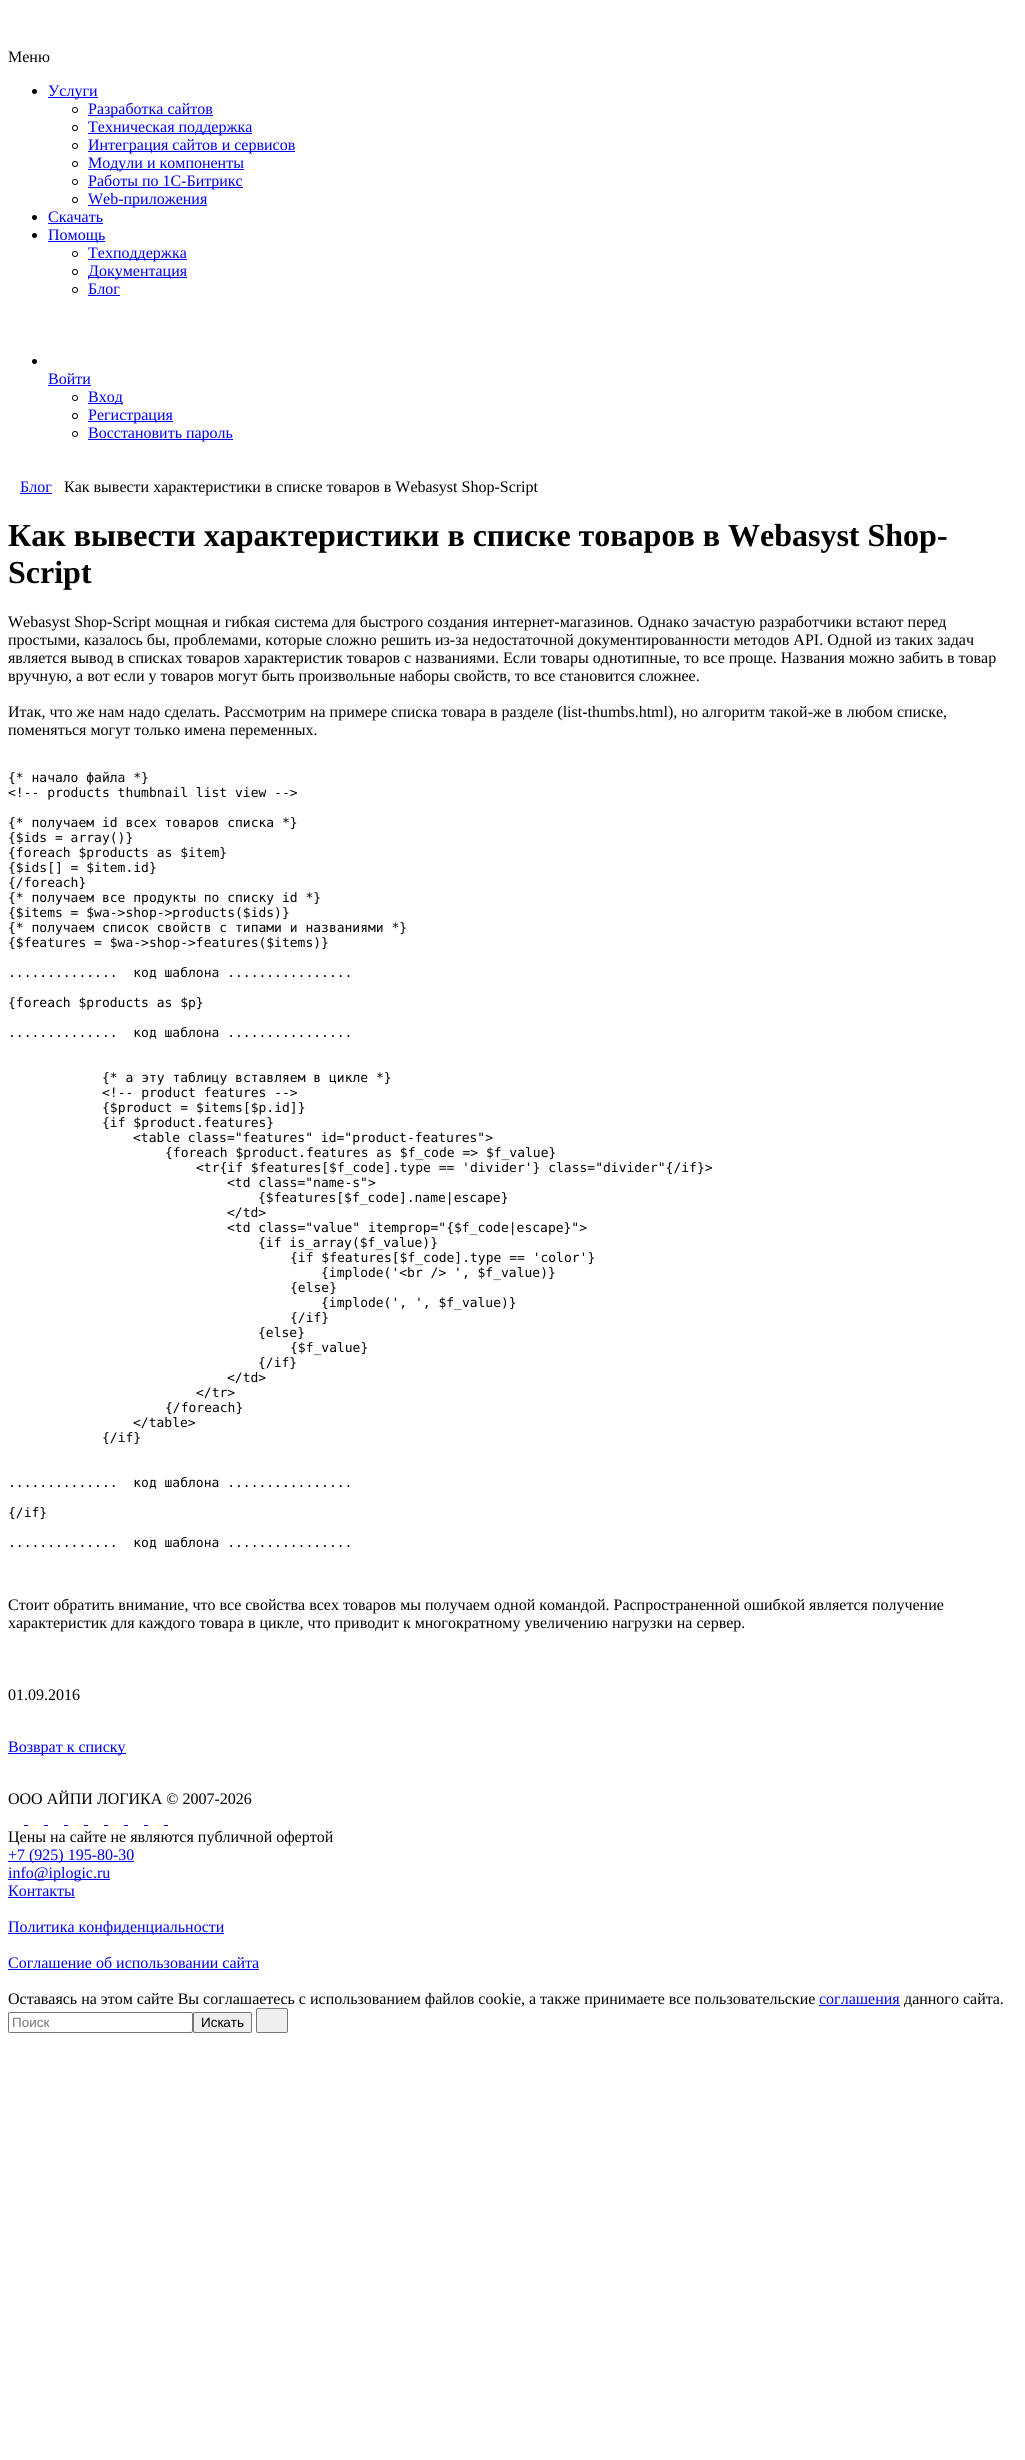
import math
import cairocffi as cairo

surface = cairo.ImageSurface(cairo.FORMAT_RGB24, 1025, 2460)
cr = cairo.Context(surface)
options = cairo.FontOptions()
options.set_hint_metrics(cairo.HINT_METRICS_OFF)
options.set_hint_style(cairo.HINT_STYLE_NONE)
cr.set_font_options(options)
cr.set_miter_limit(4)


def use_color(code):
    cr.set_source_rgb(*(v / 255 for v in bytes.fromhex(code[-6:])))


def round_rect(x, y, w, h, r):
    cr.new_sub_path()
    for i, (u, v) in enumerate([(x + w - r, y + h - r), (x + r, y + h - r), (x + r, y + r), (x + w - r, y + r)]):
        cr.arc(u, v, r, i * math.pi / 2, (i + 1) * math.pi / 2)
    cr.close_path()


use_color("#ffffff")
cr.paint()
cr.select_font_face("Liberation Serif")
cr.set_font_size(16)
use_color("#000000")
cr.move_to(8, 62)
cr.show_text("Меню")
cr.new_path()
cr.arc(34.5, 91.5, 2.5, 0, 2 * math.pi)
cr.fill()
use_color("#0000ee")
cr.rectangle(48, 97, 50, 1)
cr.fill()
cr.move_to(48, 96)
cr.show_text("Услуги")
cr.new_path()
cr.arc(75, 110, 2.5, 0, 2 * math.pi)
use_color("#000000")
cr.set_line_width(1)
cr.stroke()
use_color("#0000ee")
cr.rectangle(88, 115, 125, 1)
cr.fill()
cr.move_to(88, 114)
cr.show_text("Разработка сайтов")
cr.new_path()
cr.arc(75, 128, 2.5, 0, 2 * math.pi)
use_color("#000000")
cr.stroke()
use_color("#0000ee")
cr.rectangle(88, 133, 164, 1)
cr.fill()
cr.move_to(88, 132)
cr.show_text("Техническая поддержка")
cr.new_path()
cr.arc(75, 146, 2.5, 0, 2 * math.pi)
use_color("#000000")
cr.stroke()
use_color("#0000ee")
cr.rectangle(88, 151, 207, 1)
cr.fill()
cr.move_to(88, 150)
cr.show_text("Интеграция сайтов и сервисов")
cr.new_path()
cr.arc(75, 164, 2.5, 0, 2 * math.pi)
use_color("#000000")
cr.stroke()
use_color("#0000ee")
cr.rectangle(88, 169, 156, 1)
cr.fill()
cr.move_to(88, 168)
cr.show_text("Модули и компоненты")
cr.new_path()
cr.arc(75, 182, 2.5, 0, 2 * math.pi)
use_color("#000000")
cr.stroke()
use_color("#0000ee")
cr.rectangle(88, 187, 155, 1)
cr.fill()
cr.move_to(88, 186)
cr.show_text("Работы по 1С-Битрикс")
cr.new_path()
cr.arc(75, 200, 2.5, 0, 2 * math.pi)
use_color("#000000")
cr.stroke()
use_color("#0000ee")
cr.rectangle(88, 205, 119, 1)
cr.fill()
cr.move_to(88, 204)
cr.show_text("Web-приложения")
use_color("#000000")
cr.new_path()
cr.arc(34.5, 217.5, 2.5, 0, 2 * math.pi)
cr.fill()
use_color("#0000ee")
cr.move_to(48, 222)
cr.show_text("Скачать")
cr.rectangle(48, 223, 55, 1)
cr.fill()
use_color("#000000")
cr.arc(34.5, 235.5, 2.5, 0, 2 * math.pi)
cr.fill()
use_color("#0000ee")
cr.rectangle(48, 241, 57, 1)
cr.fill()
cr.move_to(48, 240)
cr.show_text("Помощь")
cr.new_path()
cr.arc(75, 254, 2.5, 0, 2 * math.pi)
use_color("#000000")
cr.stroke()
use_color("#0000ee")
cr.rectangle(88, 259, 99, 1)
cr.fill()
cr.move_to(88, 258)
cr.show_text("Техподдержка")
cr.new_path()
cr.arc(75, 272, 2.5, 0, 2 * math.pi)
use_color("#000000")
cr.stroke()
use_color("#0000ee")
cr.rectangle(88, 277, 99, 1)
cr.fill()
cr.move_to(88, 276)
cr.show_text("Документация")
cr.new_path()
cr.arc(75, 290, 2.5, 0, 2 * math.pi)
use_color("#000000")
cr.stroke()
use_color("#0000ee")
cr.move_to(88, 294)
cr.show_text("Блог")
cr.rectangle(88, 295, 32, 1)
cr.fill()
use_color("#000000")
cr.arc(34.5, 361.5, 2.5, 0, 2 * math.pi)
cr.fill()
use_color("#0000ee")
cr.move_to(48, 384)
cr.show_text("Войти")
cr.rectangle(48, 385, 43, 1)
cr.fill()
cr.arc(75, 398, 2.5, 0, 2 * math.pi)
use_color("#000000")
cr.stroke()
use_color("#0000ee")
cr.rectangle(88, 403, 35, 1)
cr.fill()
cr.move_to(88, 402)
cr.show_text("Вход")
cr.new_path()
cr.arc(75, 416, 2.5, 0, 2 * math.pi)
use_color("#000000")
cr.stroke()
use_color("#0000ee")
cr.rectangle(88, 421, 85, 1)
cr.fill()
cr.move_to(88, 420)
cr.show_text("Регистрация")
cr.new_path()
cr.arc(75, 434, 2.5, 0, 2 * math.pi)
use_color("#000000")
cr.stroke()
use_color("#0000ee")
cr.rectangle(88, 439, 145, 1)
cr.fill()
cr.move_to(88, 438)
cr.show_text("Восстановить пароль")
cr.move_to(20, 492)
cr.show_text("Блог")
cr.rectangle(20, 493, 32, 1)
cr.fill()
use_color("#000000")
cr.move_to(64, 492)
cr.show_text("Как вывести характеристики в списке товаров в Webasyst Shop-Script")
cr.select_font_face("Liberation Serif", cairo.FONT_SLANT_NORMAL, cairo.FONT_WEIGHT_BOLD)
cr.set_font_size(32)
cr.move_to(8, 546)
cr.show_text("Как вывести характеристики в списке товаров в Webasyst Shop-")
cr.move_to(8, 583)
cr.show_text("Script")
cr.select_font_face("Liberation Serif")
cr.set_font_size(16)
cr.move_to(8, 627)
cr.show_text("Webasyst Shop-Script мощная и гибкая система для быстрого создания интернет-магазинов. Однако зачастую разработчики встают перед")
cr.move_to(8, 645)
cr.show_text("простыми, казалось бы, проблемами, которые сложно решить из-за недостаточной документированности методов API. Одной из таких задач")
cr.move_to(8, 663)
cr.show_text("является вывод в списках товаров характеристик товаров с названиями. Если товары однотипные, то все проще. Названия можно забить в товар")
cr.move_to(8, 681)
cr.show_text("вручную, а вот если у товаров могут быть произвольные наборы свойств, то все становится сложнее.")
cr.move_to(8, 717)
cr.show_text("Итак, что же нам надо сделать. Рассмотрим на примере списка товара в разделе (list-thumbs.html), но алгоритм такой-же в любом списке,")
cr.move_to(8, 735)
cr.show_text("поменяться могут только имена переменных.")
cr.select_font_face("DejaVu Sans Mono")
cr.set_font_size(13)
cr.move_to(8, 782)
cr.show_text("{* начало файла *}")
cr.move_to(8, 797)
cr.show_text("<!-- products thumbnail list view -->")
cr.move_to(8, 827)
cr.show_text("{* получаем id всех товаров списка *}")
cr.move_to(8, 842)
cr.show_text("{$ids = array()}")
cr.move_to(8, 857)
cr.show_text("{foreach $products as $item}")
cr.move_to(8, 872)
cr.show_text("{$ids[] = $item.id}")
cr.move_to(8, 887)
cr.show_text("{/foreach}")
cr.move_to(8, 902)
cr.show_text("{* получаем все продукты по списку id *}")
cr.move_to(8, 917)
cr.show_text("{$items = $wa->shop->products($ids)}")
cr.move_to(8, 932)
cr.show_text("{* получаем список свойств с типами и названиями *}")
cr.move_to(8, 947)
cr.show_text("{$features = $wa->shop->features($items)}")
cr.move_to(8, 977)
cr.show_text("..............  код шаблона ................")
cr.move_to(8, 1007)
cr.show_text("{foreach $products as $p}")
cr.move_to(8, 1037)
cr.show_text("..............  код шаблона ................")
cr.move_to(102, 1082)
cr.show_text("{* а эту таблицу вставляем в цикле *}")
cr.move_to(102, 1097)
cr.show_text("<!-- product features -->")
cr.move_to(102, 1112)
cr.show_text("{$product = $items[$p.id]}")
cr.move_to(102, 1127)
cr.show_text("{if $product.features}")
cr.move_to(133, 1142)
cr.show_text("<table class=\"features\" id=\"product-features\">")
cr.move_to(165, 1157)
cr.show_text("{foreach $product.features as $f_code => $f_value}")
cr.move_to(196, 1172)
cr.show_text("<tr{if $features[$f_code].type == 'divider'} class=\"divider\"{/if}>")
cr.move_to(227, 1187)
cr.show_text("<td class=\"name-s\">")
cr.move_to(258, 1202)
cr.show_text("{$features[$f_code].name|escape}")
cr.move_to(227, 1217)
cr.show_text("</td>")
cr.move_to(227, 1232)
cr.show_text("<td class=\"value\" itemprop=\"{$f_code|escape}\">")
cr.move_to(258, 1247)
cr.show_text("{if is_array($f_value)}")
cr.move_to(290, 1262)
cr.show_text("{if $features[$f_code].type == 'color'}")
cr.move_to(321, 1277)
cr.show_text("{implode('<br /> ', $f_value)}")
cr.move_to(290, 1292)
cr.show_text("{else}")
cr.move_to(321, 1307)
cr.show_text("{implode(', ', $f_value)}")
cr.move_to(290, 1322)
cr.show_text("{/if}")
cr.move_to(258, 1337)
cr.show_text("{else}")
cr.move_to(290, 1352)
cr.show_text("{$f_value}")
cr.move_to(258, 1367)
cr.show_text("{/if}")
cr.move_to(227, 1382)
cr.show_text("</td>")
cr.move_to(196, 1397)
cr.show_text("</tr>")
cr.move_to(165, 1412)
cr.show_text("{/foreach}")
cr.move_to(133, 1427)
cr.show_text("</table>")
cr.move_to(102, 1442)
cr.show_text("{/if}")
cr.move_to(8, 1487)
cr.show_text("..............  код шаблона ................")
cr.move_to(8, 1517)
cr.show_text("{/if}")
cr.move_to(8, 1547)
cr.show_text("..............  код шаблона ................")
cr.select_font_face("Liberation Serif")
cr.set_font_size(16)
cr.move_to(8, 1610)
cr.show_text("Стоит обратить внимание, что все свойства всех товаров мы получаем одной командой. Распространенной ошибкой является получение")
cr.move_to(8, 1628)
cr.show_text("характеристик для каждого товара в цикле, что приводит к многократному увеличению нагрузки на сервер.")
cr.move_to(8, 1700)
cr.show_text("01.09.2016")
use_color("#0000ee")
cr.rectangle(8, 1753, 118, 1)
cr.fill()
cr.move_to(8, 1752)
cr.show_text("Возврат к списку")
use_color("#000000")
cr.move_to(8, 1804)
cr.show_text("ООО АЙПИ ЛОГИКА © 2007-2026")
use_color("#0000ee")
cr.rectangle(24, 1825, 4, 1)
cr.fill()
cr.rectangle(44, 1825, 4, 1)
cr.fill()
cr.rectangle(64, 1825, 4, 1)
cr.fill()
cr.rectangle(84, 1825, 4, 1)
cr.fill()
cr.rectangle(104, 1825, 4, 1)
cr.fill()
cr.rectangle(124, 1825, 4, 1)
cr.fill()
cr.rectangle(144, 1825, 4, 1)
cr.fill()
cr.rectangle(164, 1825, 4, 1)
cr.fill()
use_color("#000000")
cr.move_to(8, 1842)
cr.show_text("Цены на сайте не являются публичной офертой")
use_color("#0000ee")
cr.rectangle(8, 1861, 126, 1)
cr.fill()
cr.move_to(8, 1860)
cr.show_text("+7 (925) 195-80-30")
cr.rectangle(8, 1879, 102, 1)
cr.fill()
cr.move_to(8, 1878)
cr.show_text("info@iplogic.ru")
cr.move_to(8, 1896)
cr.show_text("Контакты")
cr.rectangle(8, 1897, 67, 1)
cr.fill()
cr.rectangle(8, 1933, 216, 1)
cr.fill()
cr.move_to(8, 1932)
cr.show_text("Политика конфиденциальности")
cr.move_to(8, 1968)
cr.show_text("Соглашение об использовании сайта")
cr.rectangle(8, 1969, 251, 1)
cr.fill()
use_color("#000000")
cr.move_to(8, 2004)
cr.show_text("Оставаясь на этом сайте Вы соглашаетесь с использованием файлов cookie, а также принимаете все пользовательские")
use_color("#0000ee")
cr.move_to(819, 2004)
cr.show_text("соглашения")
cr.rectangle(819, 2005, 81, 1)
cr.fill()
use_color("#000000")
cr.move_to(904, 2004)
cr.show_text("данного сайта.")
round_rect(8.5, 2012.5, 184, 20, 1.5)
use_color("#767676")
cr.stroke()
cr.select_font_face("Liberation Sans")
cr.set_font_size(13.5)
use_color("#757575")
cr.move_to(12, 2027)
cr.show_text("Поиск")
use_color("#efefef")
round_rect(193.5, 2012.5, 58, 20, 1.5)
cr.fill_preserve()
use_color("#767676")
cr.stroke()
use_color("#000000")
cr.move_to(201, 2027)
cr.show_text("Искать")
use_color("#efefef")
round_rect(256.5, 2008.5, 31, 24, 1.5)
cr.fill_preserve()
use_color("#767676")
cr.stroke()
surface.write_to_png("result.png")
